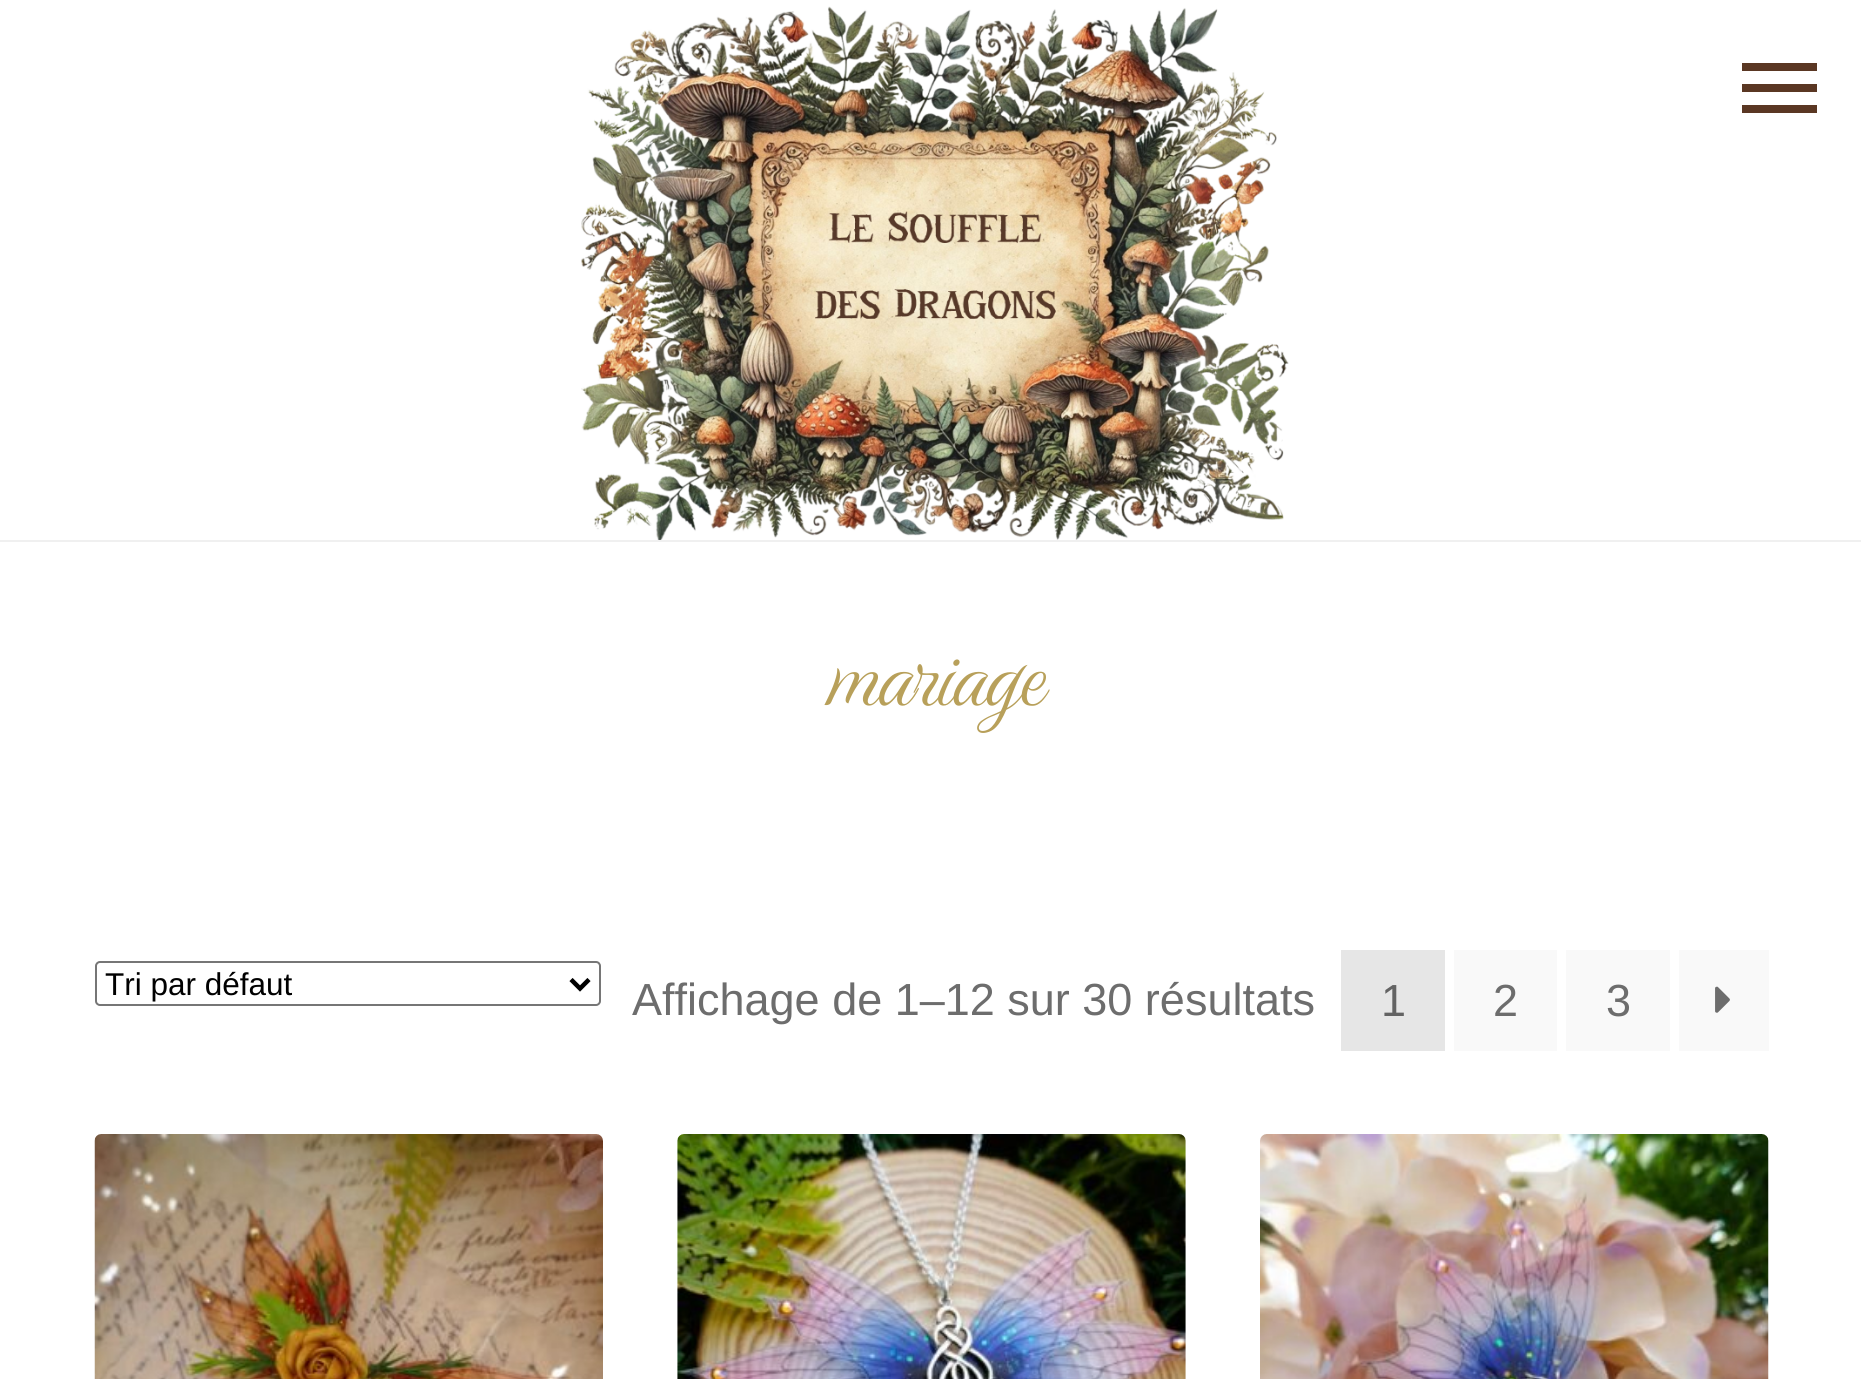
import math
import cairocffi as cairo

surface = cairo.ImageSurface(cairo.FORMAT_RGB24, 1861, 1379)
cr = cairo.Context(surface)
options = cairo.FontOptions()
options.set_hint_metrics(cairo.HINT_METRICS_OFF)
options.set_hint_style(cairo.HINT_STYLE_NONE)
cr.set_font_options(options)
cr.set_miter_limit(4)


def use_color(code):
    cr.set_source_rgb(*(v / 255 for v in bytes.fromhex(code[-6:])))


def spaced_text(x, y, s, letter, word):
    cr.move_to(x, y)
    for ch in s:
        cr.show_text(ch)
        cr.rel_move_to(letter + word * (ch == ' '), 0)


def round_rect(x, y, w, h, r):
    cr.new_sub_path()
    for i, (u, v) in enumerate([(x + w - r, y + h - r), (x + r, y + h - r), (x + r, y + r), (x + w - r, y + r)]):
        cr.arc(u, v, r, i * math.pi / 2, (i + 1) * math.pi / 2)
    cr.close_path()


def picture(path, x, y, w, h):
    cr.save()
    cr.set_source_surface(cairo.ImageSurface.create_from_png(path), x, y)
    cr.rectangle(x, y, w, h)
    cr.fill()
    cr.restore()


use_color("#ffffff")
cr.paint()
use_color("#f0f0f0")
cr.rectangle(0, 540, 1861, 2)
cr.fill()
picture("img1.png", 581, 6, 708, 534)
use_color("#5a3723")
cr.new_path()
cr.move_to(1742, 113)
cr.line_to(1742, 105)
cr.line_to(1817, 105)
cr.line_to(1817, 113)
cr.close_path()
cr.move_to(1742, 92)
cr.line_to(1742, 84)
cr.line_to(1817, 84)
cr.line_to(1817, 92)
cr.close_path()
cr.move_to(1742, 63)
cr.line_to(1817, 63)
cr.line_to(1817, 71)
cr.line_to(1742, 71)
cr.close_path()
cr.fill()
cr.select_font_face("MonteCarlo")
cr.set_font_size(101)
use_color("#b8a05a")
spaced_text(824, 705, "mariage", -2.25, 0)
round_rect(96, 962, 504, 43, 4)
use_color("#767676")
cr.stroke()
cr.new_path()
cr.move_to(571, 979.5)
cr.line_to(580, 988.5)
cr.line_to(589, 979.5)
use_color("#000000")
cr.set_line_width(4.5)
cr.stroke()
cr.select_font_face("Liberation Sans")
cr.set_font_size(31.5)
cr.move_to(105, 995)
cr.show_text("Tri par défaut")
cr.set_font_size(45)
use_color("#6d6d6d")
cr.move_to(632, 1015)
cr.show_text("Affichage de 1–12 sur 30 résultats")
use_color("#e6e6e6")
cr.rectangle(1341, 950, 104, 101)
cr.fill()
use_color("#636363")
cr.move_to(1381, 1016)
cr.show_text("1")
use_color("#f9f9f9")
cr.rectangle(1454, 950, 103, 101)
cr.fill()
use_color("#6d6d6d")
cr.move_to(1493, 1016)
cr.show_text("2")
use_color("#f9f9f9")
cr.rectangle(1566, 950, 104, 101)
cr.fill()
use_color("#6d6d6d")
cr.move_to(1606, 1016)
cr.show_text("3")
use_color("#f9f9f9")
cr.rectangle(1679, 950, 90, 101)
cr.fill()
picture("img2.png", 1715, 986, 15, 27)
picture("img3.png", 94, 1134, 509, 245)
picture("img4.png", 677, 1134, 509, 245)
picture("img5.png", 1260, 1134, 509, 245)
surface.write_to_png("result.png")
